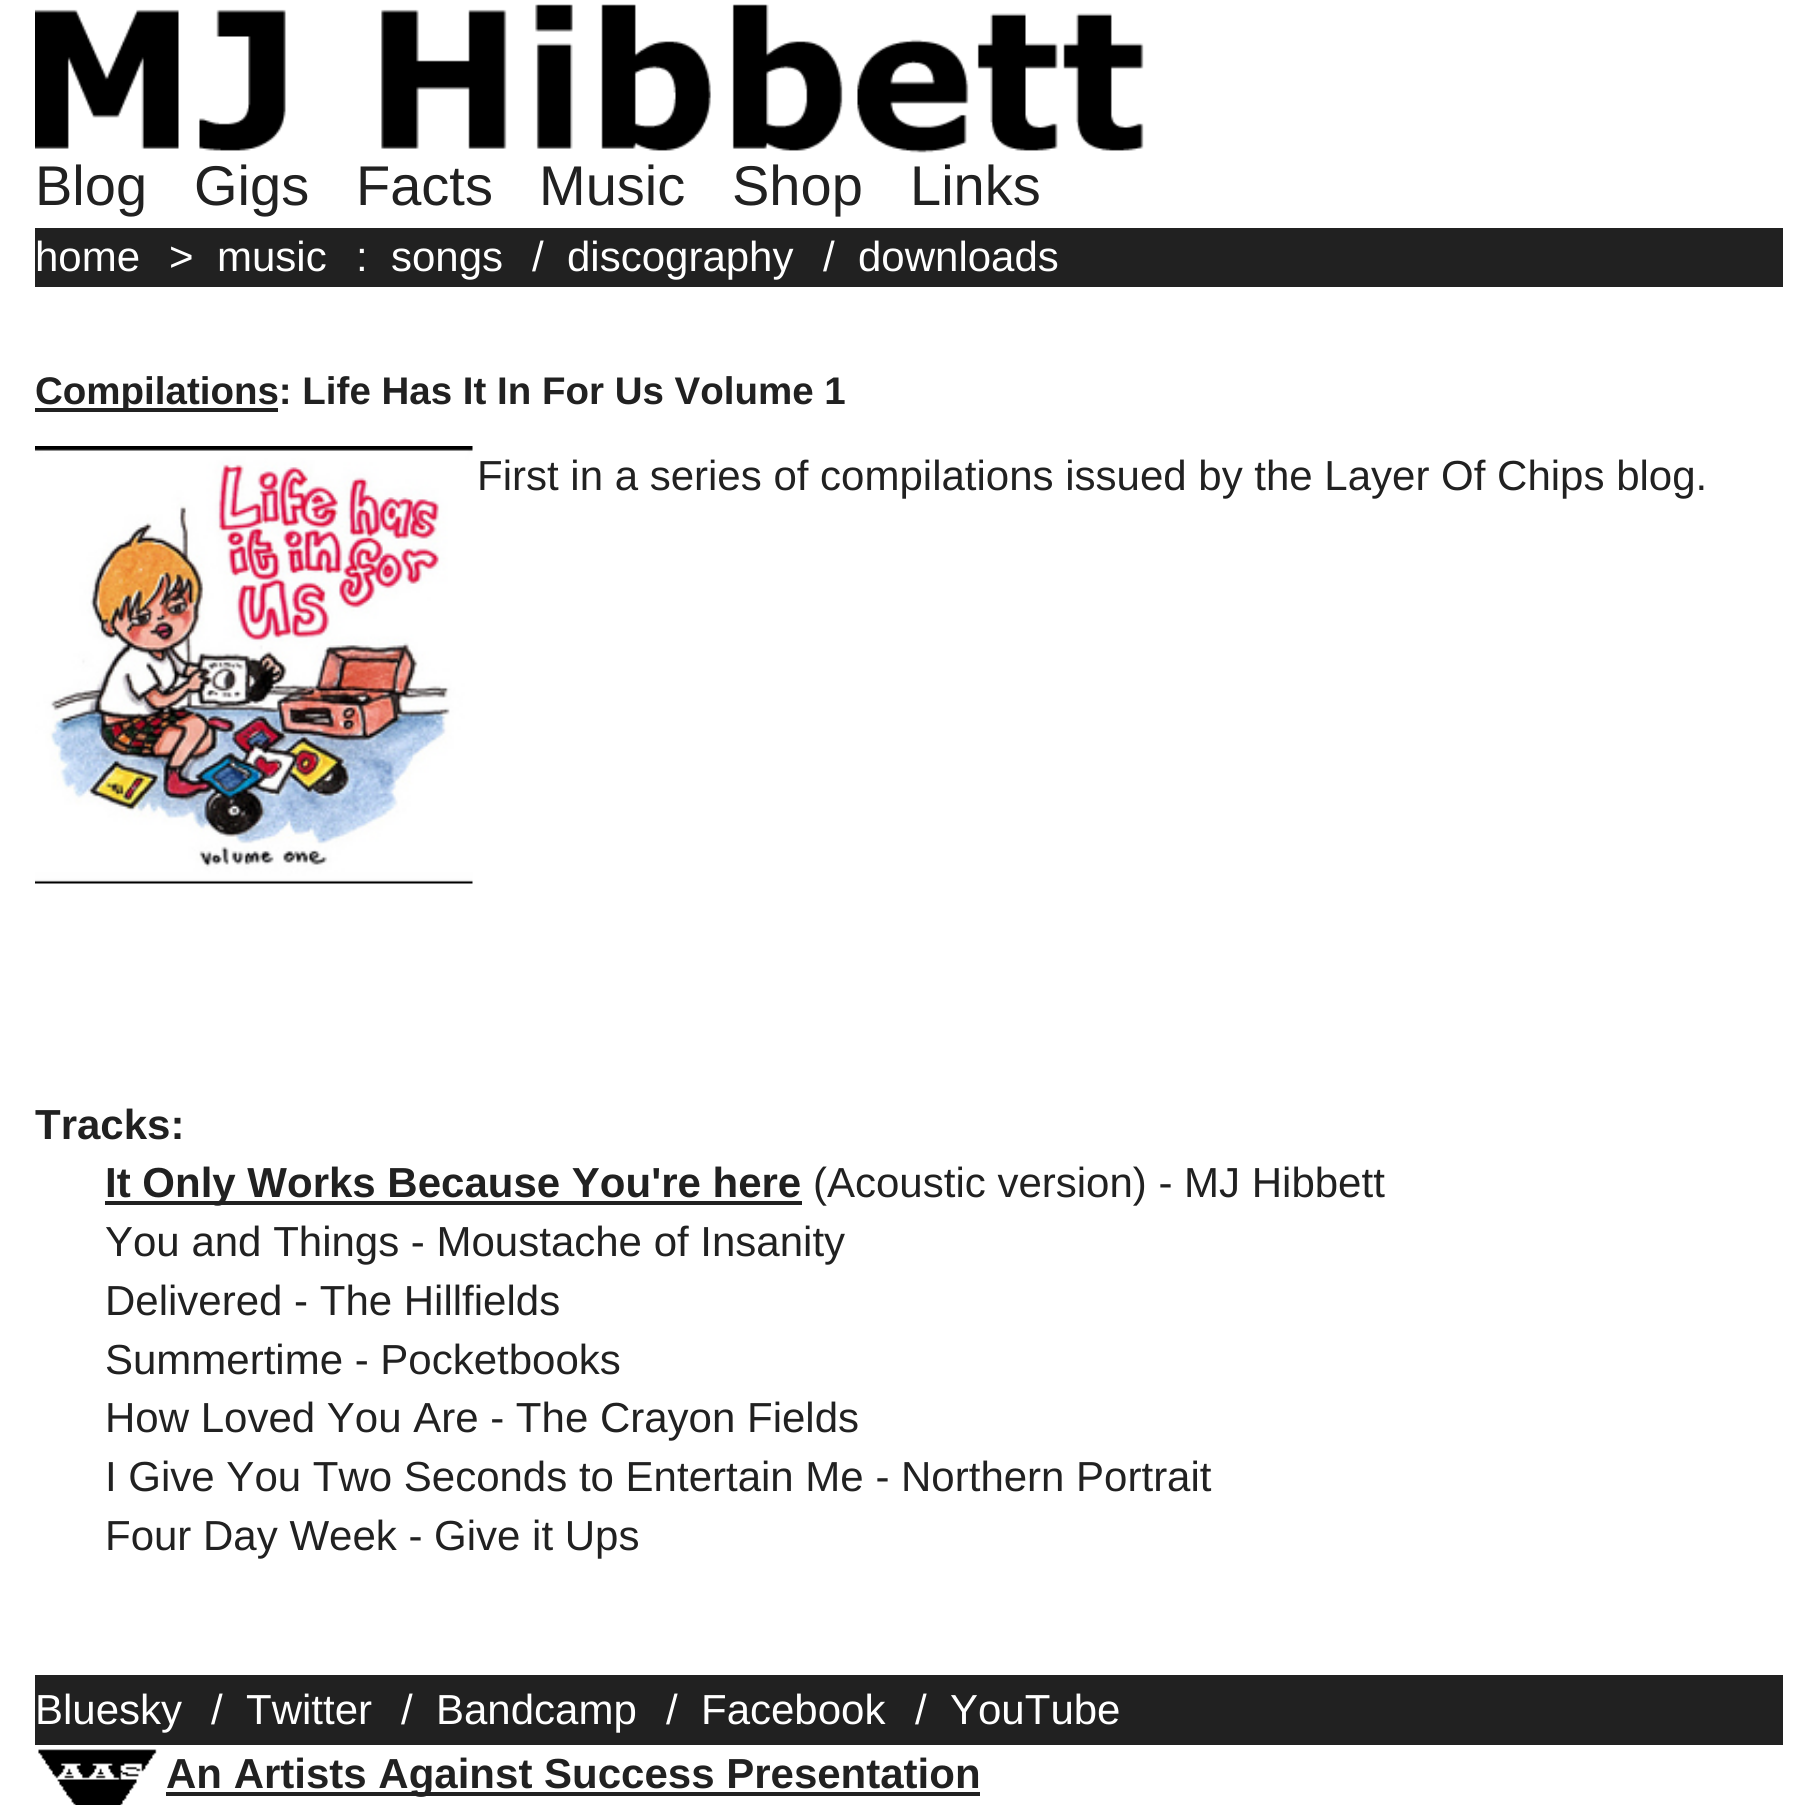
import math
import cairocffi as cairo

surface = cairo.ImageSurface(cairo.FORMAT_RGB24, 1818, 1805)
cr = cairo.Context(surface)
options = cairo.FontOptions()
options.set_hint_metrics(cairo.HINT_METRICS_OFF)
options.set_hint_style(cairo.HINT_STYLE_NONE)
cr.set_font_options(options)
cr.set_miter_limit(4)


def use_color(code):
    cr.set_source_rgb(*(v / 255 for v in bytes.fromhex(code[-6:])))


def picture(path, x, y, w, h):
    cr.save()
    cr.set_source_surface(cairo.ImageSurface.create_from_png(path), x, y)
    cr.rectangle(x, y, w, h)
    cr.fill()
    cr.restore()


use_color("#ffffff")
cr.paint()
picture("img1.png", 35, 4, 1109, 149)
cr.select_font_face("Liberation Sans")
cr.set_font_size(56)
use_color("#212121")
cr.move_to(35, 205)
cr.show_text("Blog")
cr.move_to(194, 205)
cr.show_text("Gigs")
cr.move_to(356, 205)
cr.show_text("Facts")
cr.move_to(539, 205)
cr.show_text("Music")
cr.move_to(732, 205)
cr.show_text("Shop")
cr.move_to(910, 205)
cr.show_text("Links")
cr.rectangle(35, 228, 1748, 59)
cr.fill()
cr.set_font_size(42)
use_color("#ffffff")
cr.move_to(35, 271)
cr.show_text("home")
cr.move_to(169, 271)
cr.show_text(">")
cr.move_to(217, 271)
cr.show_text("music")
cr.move_to(356, 271)
cr.show_text(":")
cr.move_to(391, 271)
cr.show_text("songs")
cr.move_to(532, 271)
cr.show_text("/")
cr.move_to(567, 271)
cr.show_text("discography")
cr.move_to(823, 271)
cr.show_text("/")
cr.move_to(858, 271)
cr.show_text("downloads")
use_color("#212121")
cr.rectangle(35, 408, 243, 4)
cr.fill()
cr.select_font_face("Liberation Sans", cairo.FONT_SLANT_NORMAL, cairo.FONT_WEIGHT_BOLD)
cr.set_font_size(38.5)
cr.move_to(35, 404)
cr.show_text("Compilations: Life Has It In For Us Volume 1")
picture("img2.png", 35, 446, 438, 438)
cr.select_font_face("Liberation Sans")
cr.set_font_size(42)
cr.move_to(477, 490)
cr.show_text("First in a series of compilations issued by the Layer Of Chips blog.")
cr.select_font_face("Liberation Sans", cairo.FONT_SLANT_NORMAL, cairo.FONT_WEIGHT_BOLD)
cr.move_to(35, 1139)
cr.show_text("Tracks:")
cr.rectangle(105, 1201, 697, 4)
cr.fill()
cr.move_to(105, 1197)
cr.show_text("It Only Works Because You're here")
cr.select_font_face("Liberation Sans")
cr.move_to(813, 1197)
cr.show_text("(Acoustic version) - MJ Hibbett")
cr.move_to(105, 1256)
cr.show_text("You and Things - Moustache of Insanity")
cr.move_to(105, 1315)
cr.show_text("Delivered - The Hillfields")
cr.move_to(105, 1374)
cr.show_text("Summertime - Pocketbooks")
cr.move_to(105, 1432)
cr.show_text("How Loved You Are - The Crayon Fields")
cr.move_to(105, 1491)
cr.show_text("I Give You Two Seconds to Entertain Me - Northern Portrait")
cr.move_to(105, 1550)
cr.show_text("Four Day Week - Give it Ups")
cr.rectangle(35, 1675, 1748, 70)
cr.fill()
use_color("#ffffff")
cr.move_to(35, 1724)
cr.show_text("Bluesky")
cr.move_to(211, 1724)
cr.show_text("/")
cr.move_to(246, 1724)
cr.show_text("Twitter")
cr.move_to(401, 1724)
cr.show_text("/")
cr.move_to(436, 1724)
cr.show_text("Bandcamp")
cr.move_to(666, 1724)
cr.show_text("/")
cr.move_to(701, 1724)
cr.show_text("Facebook")
cr.move_to(915, 1724)
cr.show_text("/")
cr.move_to(950, 1724)
cr.show_text("YouTube")
picture("img3.png", 38, 1749, 119, 56)
use_color("#212121")
cr.rectangle(166, 1792, 814, 4)
cr.fill()
cr.select_font_face("Liberation Sans", cairo.FONT_SLANT_NORMAL, cairo.FONT_WEIGHT_BOLD)
cr.move_to(166, 1788)
cr.show_text("An Artists Against Success Presentation")
surface.write_to_png("result.png")
